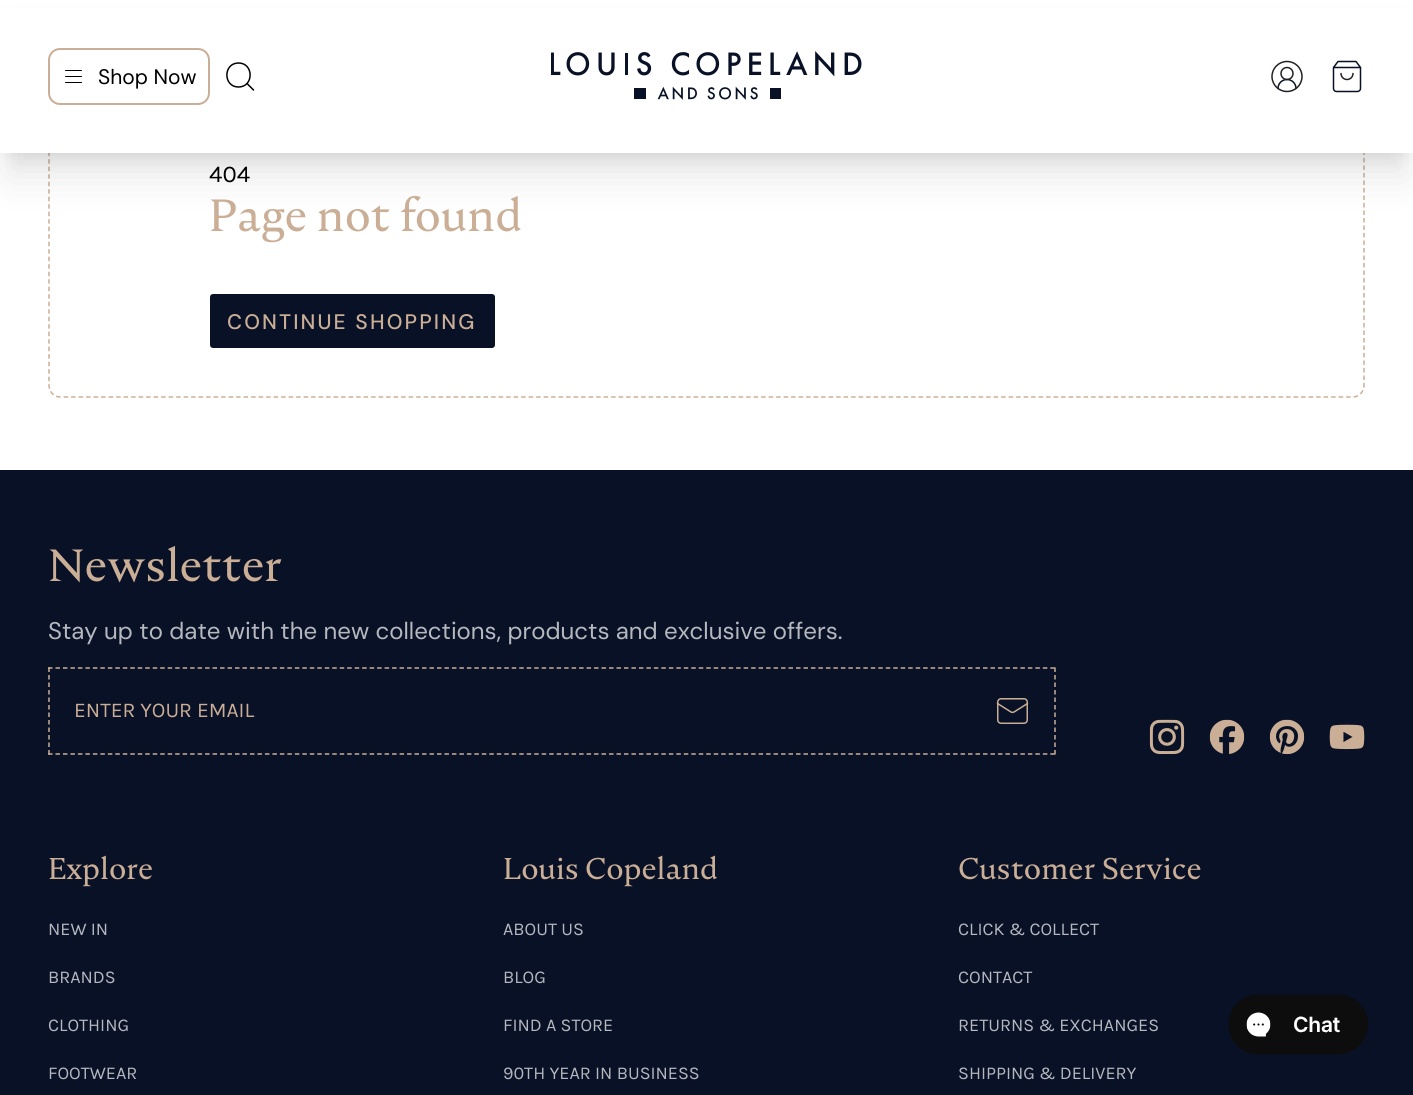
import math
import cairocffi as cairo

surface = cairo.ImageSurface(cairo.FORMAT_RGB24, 1413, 1095)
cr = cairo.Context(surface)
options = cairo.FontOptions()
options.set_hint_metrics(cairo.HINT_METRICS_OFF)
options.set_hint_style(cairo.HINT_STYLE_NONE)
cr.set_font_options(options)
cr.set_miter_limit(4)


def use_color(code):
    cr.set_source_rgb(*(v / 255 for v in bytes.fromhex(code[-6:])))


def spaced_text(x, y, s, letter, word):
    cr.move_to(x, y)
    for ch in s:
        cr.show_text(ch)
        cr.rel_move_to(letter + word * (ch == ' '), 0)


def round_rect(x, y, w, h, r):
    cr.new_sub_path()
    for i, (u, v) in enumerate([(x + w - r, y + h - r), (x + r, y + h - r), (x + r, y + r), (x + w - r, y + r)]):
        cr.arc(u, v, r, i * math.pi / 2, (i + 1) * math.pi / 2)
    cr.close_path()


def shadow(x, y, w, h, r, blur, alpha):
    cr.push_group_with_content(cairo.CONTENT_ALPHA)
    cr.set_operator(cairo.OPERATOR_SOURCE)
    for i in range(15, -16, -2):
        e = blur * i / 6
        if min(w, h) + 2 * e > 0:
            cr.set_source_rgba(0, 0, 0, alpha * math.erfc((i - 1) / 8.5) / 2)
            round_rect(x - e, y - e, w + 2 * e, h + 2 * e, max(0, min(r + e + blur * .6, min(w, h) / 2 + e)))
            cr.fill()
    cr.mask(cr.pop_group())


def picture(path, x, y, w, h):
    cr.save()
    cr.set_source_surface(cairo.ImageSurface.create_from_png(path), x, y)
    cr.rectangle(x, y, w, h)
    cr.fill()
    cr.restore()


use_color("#ffffff")
cr.paint()
cr.new_path()
cr.move_to(60, 107)
cr.line_to(1353, 107)
cr.curve_to(1359, 107, 1364, 112.5, 1364, 118.5)
cr.line_to(1364, 385.5)
cr.curve_to(1364, 391.5, 1359, 397, 1353, 397)
cr.line_to(60, 397)
cr.curve_to(54, 397, 49, 391.5, 49, 385.5)
cr.line_to(49, 118.5)
cr.curve_to(49, 112.5, 54, 107, 60, 107)
cr.close_path()
use_color("#caae96")
cr.set_line_width(1.5)
cr.set_dash([4.5, 3])
cr.stroke()
use_color("#000000")
shadow(9, 21, 1395, 135, 0, 7.5, 0.1)
shadow(8, 38, 1398, 138, 0, 19, 0.1)
use_color("#ffffff")
cr.rectangle(0, 8, 1413, 145)
cr.fill()
round_rect(49, 49, 160, 55, 11)
use_color("#caae96")
cr.set_line_width(2)
cr.set_dash([])
cr.stroke()
cr.new_path()
cr.move_to(65.5, 76.5)
cr.line_to(81.5, 76.5)
cr.move_to(65.5, 70.5)
cr.line_to(81.5, 70.5)
cr.move_to(65.5, 82.5)
cr.line_to(81.5, 82.5)
use_color("#000000")
cr.set_line_width(1)
cr.set_line_cap(cairo.LINE_CAP_ROUND)
cr.set_line_join(cairo.LINE_JOIN_ROUND)
cr.stroke()
cr.select_font_face("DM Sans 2")
cr.set_font_size(21)
cr.move_to(98, 84)
cr.show_text("Shop Now")
cr.new_path()
cr.move_to(238.5, 87)
cr.curve_to(254, 87, 254, 63, 238.5, 63)
cr.curve_to(223, 63, 223, 87, 238.5, 87)
cr.close_path()
cr.move_to(253.5, 90)
cr.line_to(247, 83.5)
cr.set_line_width(1.5)
cr.stroke()
picture("img1.png", 551, 51, 311, 49)
picture("img2.png", 1271, 60, 32, 33)
picture("img3.png", 1332, 60, 30, 33)
cr.select_font_face("Karla")
cr.set_font_size(24)
cr.move_to(209, 182)
cr.show_text("404")
cr.select_font_face("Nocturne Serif")
cr.set_font_size(45)
use_color("#caae96")
cr.move_to(209, 231)
cr.show_text("Page not found")
use_color("#091126")
round_rect(210, 294, 285, 54, 3)
cr.fill()
cr.select_font_face("DM Sans Medium")
cr.set_font_size(21)
use_color("#caae96")
spaced_text(227, 329, "CONTINUE SHOPPING", 2.1, 0)
use_color("#091126")
cr.rectangle(0, 470, 1413, 625)
cr.fill()
cr.select_font_face("Nocturne Serif")
cr.set_font_size(45)
use_color("#caae96")
cr.move_to(48, 581)
cr.show_text("Newsletter")
cr.select_font_face("DM Sans")
cr.set_font_size(24)
use_color("#b5b8be")
cr.move_to(48, 639)
cr.show_text("Stay up to date with the new collections, products and exclusive offers.")
cr.new_path()
cr.move_to(48, 668)
cr.line_to(1056, 668)
use_color("#caae96")
cr.set_line_cap(cairo.LINE_CAP_BUTT)
cr.set_line_join(cairo.LINE_JOIN_MITER)
cr.set_dash([4.5, 2.98])
cr.stroke()
cr.new_path()
cr.move_to(1055, 667.5)
cr.line_to(1055, 754.5)
cr.set_dash([4.5, 3])
cr.stroke()
cr.new_path()
cr.move_to(48, 754)
cr.line_to(1056, 754)
cr.set_dash([4.5, 2.98])
cr.stroke()
cr.new_path()
cr.move_to(49, 667.5)
cr.line_to(49, 754.5)
cr.set_dash([4.5, 3])
cr.stroke()
cr.select_font_face("Karla")
cr.set_font_size(21)
cr.move_to(74, 717)
cr.show_text("ENTER YOUR EMAIL")
round_rect(997.75, 698.75, 29.5, 24.5, 3.25)
cr.set_dash([])
cr.stroke()
cr.new_path()
cr.move_to(1027.5, 703.5)
cr.line_to(1014, 712)
cr.curve_to(1013, 712.5, 1012, 712.5, 1011, 712)
cr.line_to(997.5, 703.5)
cr.set_line_cap(cairo.LINE_CAP_ROUND)
cr.set_line_join(cairo.LINE_JOIN_ROUND)
cr.stroke()
picture("img4.png", 1149, 719, 36, 36)
picture("img5.png", 1209, 719, 36, 35)
picture("img6.png", 1269, 719, 36, 36)
picture("img7.png", 1329, 724, 36, 26)
cr.select_font_face("Nocturne Serif")
cr.set_font_size(30)
cr.move_to(48, 879)
cr.show_text("Explore")
cr.select_font_face("Karla")
cr.set_font_size(18)
use_color("#b5b8be")
cr.move_to(48, 935)
cr.show_text("NEW IN")
cr.move_to(48, 983)
cr.show_text("BRANDS")
cr.move_to(48, 1031)
cr.show_text("CLOTHING")
cr.move_to(48, 1079)
cr.show_text("FOOTWEAR")
cr.select_font_face("Nocturne Serif")
cr.set_font_size(30)
use_color("#caae96")
cr.move_to(503, 879)
cr.show_text("Louis Copeland")
cr.select_font_face("Karla")
cr.set_font_size(18)
use_color("#b5b8be")
cr.move_to(503, 935)
cr.show_text("ABOUT US")
cr.move_to(503, 983)
cr.show_text("BLOG")
cr.move_to(503, 1031)
cr.show_text("FIND A STORE")
cr.move_to(503, 1079)
cr.show_text("90TH YEAR IN BUSINESS")
cr.select_font_face("Nocturne Serif")
cr.set_font_size(30)
use_color("#caae96")
cr.move_to(958, 879)
cr.show_text("Customer Service")
cr.select_font_face("Karla")
cr.set_font_size(18)
use_color("#b5b8be")
cr.move_to(958, 935)
cr.show_text("CLICK & COLLECT")
cr.move_to(958, 983)
cr.show_text("CONTACT")
cr.move_to(958, 1031)
cr.show_text("RETURNS & EXCHANGES")
cr.move_to(958, 1079)
cr.show_text("SHIPPING & DELIVERY")
picture("img8.png", 1228, 994, 140, 61)
surface.write_to_png("result.png")
